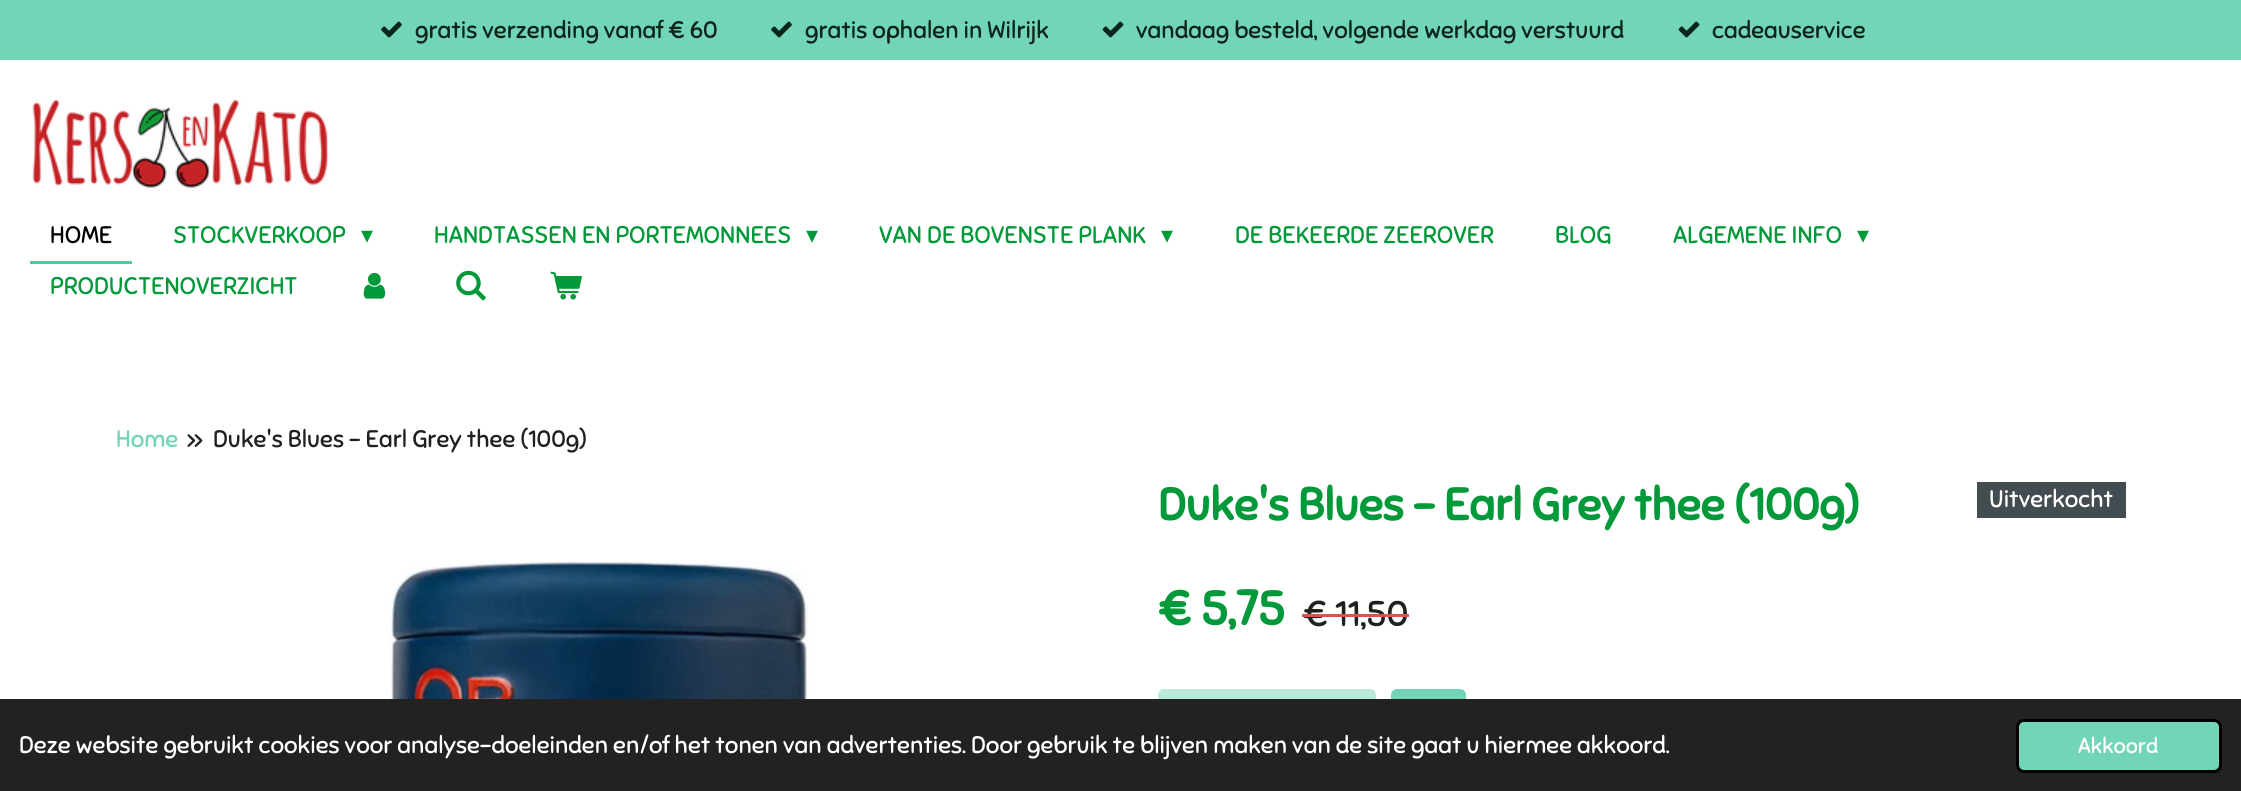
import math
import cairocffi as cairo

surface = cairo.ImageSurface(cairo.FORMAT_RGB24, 2241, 791)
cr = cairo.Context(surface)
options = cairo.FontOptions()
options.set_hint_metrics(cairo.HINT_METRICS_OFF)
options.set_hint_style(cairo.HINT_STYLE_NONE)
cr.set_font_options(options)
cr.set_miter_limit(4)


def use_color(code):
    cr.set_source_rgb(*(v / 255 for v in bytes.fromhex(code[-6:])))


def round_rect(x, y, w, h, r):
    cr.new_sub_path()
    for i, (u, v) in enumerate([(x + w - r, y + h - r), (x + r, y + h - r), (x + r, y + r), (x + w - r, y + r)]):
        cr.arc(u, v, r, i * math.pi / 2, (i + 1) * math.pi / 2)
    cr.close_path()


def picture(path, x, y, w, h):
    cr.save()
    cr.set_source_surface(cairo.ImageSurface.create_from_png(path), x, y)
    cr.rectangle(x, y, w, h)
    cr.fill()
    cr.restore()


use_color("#ffffff")
cr.paint()
use_color("#73d5b8")
cr.rectangle(0, 0, 2241, 60)
cr.fill()
picture("img1.png", 381, 21, 21, 17)
cr.select_font_face("Sniglet")
cr.set_font_size(24)
use_color("#0b251d")
cr.move_to(415, 38)
cr.show_text("gratis verzending vanaf € 60")
picture("img1.png", 771, 21, 21, 17)
cr.move_to(805, 38)
cr.show_text("gratis ophalen in Wilrijk")
picture("img2.png", 1102, 21, 22, 17)
cr.move_to(1136, 38)
cr.show_text("vandaag besteld, volgende werkdag verstuurd")
picture("img2.png", 1678, 21, 22, 17)
cr.move_to(1712, 38)
cr.show_text("cadeauservice")
picture("img3.png", 32, 99, 297, 89)
use_color("#4cc9a4")
cr.rectangle(30, 261, 102, 3)
cr.fill()
use_color("#000100")
cr.move_to(50, 243)
cr.show_text("HOME")
use_color("#019939")
cr.move_to(173, 243)
cr.show_text("STOCKVERKOOP")
cr.select_font_face("DejaVu Sans")
cr.move_to(361, 243)
cr.show_text("▾")
cr.select_font_face("Sniglet")
cr.move_to(434, 243)
cr.show_text("HANDTASSEN EN PORTEMONNEES")
cr.select_font_face("DejaVu Sans")
cr.move_to(806, 243)
cr.show_text("▾")
cr.select_font_face("Sniglet")
cr.move_to(879, 243)
cr.show_text("VAN DE BOVENSTE PLANK")
cr.select_font_face("DejaVu Sans")
cr.move_to(1161, 243)
cr.show_text("▾")
cr.select_font_face("Sniglet")
cr.move_to(1235, 243)
cr.show_text("DE BEKEERDE ZEEROVER")
cr.move_to(1555, 243)
cr.show_text("BLOG")
cr.move_to(1673, 243)
cr.show_text("ALGEMENE INFO")
cr.select_font_face("DejaVu Sans")
cr.move_to(1857, 243)
cr.show_text("▾")
cr.select_font_face("Sniglet")
cr.move_to(50, 294)
cr.show_text("PRODUCTENOVERZICHT")
picture("img4.png", 363, 272, 23, 27)
picture("img5.png", 456, 270, 31, 31)
picture("img6.png", 550, 271, 32, 29)
use_color("#73d5b8")
cr.move_to(116, 447)
cr.show_text("Home")
use_color("#202020")
cr.move_to(187, 447)
cr.show_text("»")
cr.move_to(213, 447)
cr.show_text("Duke's Blues - Earl Grey thee (100g)")
cr.select_font_face("Sniglet", cairo.FONT_SLANT_NORMAL, cairo.FONT_WEIGHT_BOLD)
cr.set_font_size(45)
use_color("#019939")
cr.move_to(1158, 520)
cr.show_text("Duke's Blues - Earl Grey thee (100g)")
use_color("#424c51")
cr.rectangle(1977, 482, 149, 36)
cr.fill()
cr.select_font_face("Sniglet")
cr.set_font_size(24)
use_color("#ffffff")
cr.move_to(1989, 507)
cr.show_text("Uitverkocht")
picture("img7.png", 390, 561, 419, 138)
cr.select_font_face("Sniglet", cairo.FONT_SLANT_NORMAL, cairo.FONT_WEIGHT_BOLD)
cr.set_font_size(48)
use_color("#019939")
cr.move_to(1158, 625)
cr.show_text("€ 5,75")
cr.select_font_face("Sniglet")
cr.set_font_size(36)
use_color("#202020")
cr.move_to(1303, 626)
cr.show_text("€ 11,50")
use_color("#d9534f")
cr.rectangle(1302, 614, 107, 3)
cr.fill()
use_color("#b9eadc")
round_rect(1158, 689, 218, 78, 6)
cr.fill()
use_color("#73d5b8")
round_rect(1391, 689, 75, 78, 6)
cr.fill()
use_color("#222222")
cr.rectangle(0, 699, 2241, 92)
cr.fill()
cr.set_font_size(24)
use_color("#ffffff")
cr.move_to(19, 753)
cr.show_text("Deze website gebruikt cookies voor analyse-doeleinden en/of het tonen van advertenties. Door gebruik te blijven maken van de site gaat u hiermee akkoord.")
use_color("#73d5b8")
round_rect(2017.5, 720.5, 203, 51, 6.5)
cr.fill_preserve()
use_color("#000000")
cr.set_line_width(3)
cr.stroke()
cr.set_font_size(21.5)
use_color("#ffffff")
cr.move_to(2078, 753)
cr.show_text("Akkoord")
surface.write_to_png("result.png")
